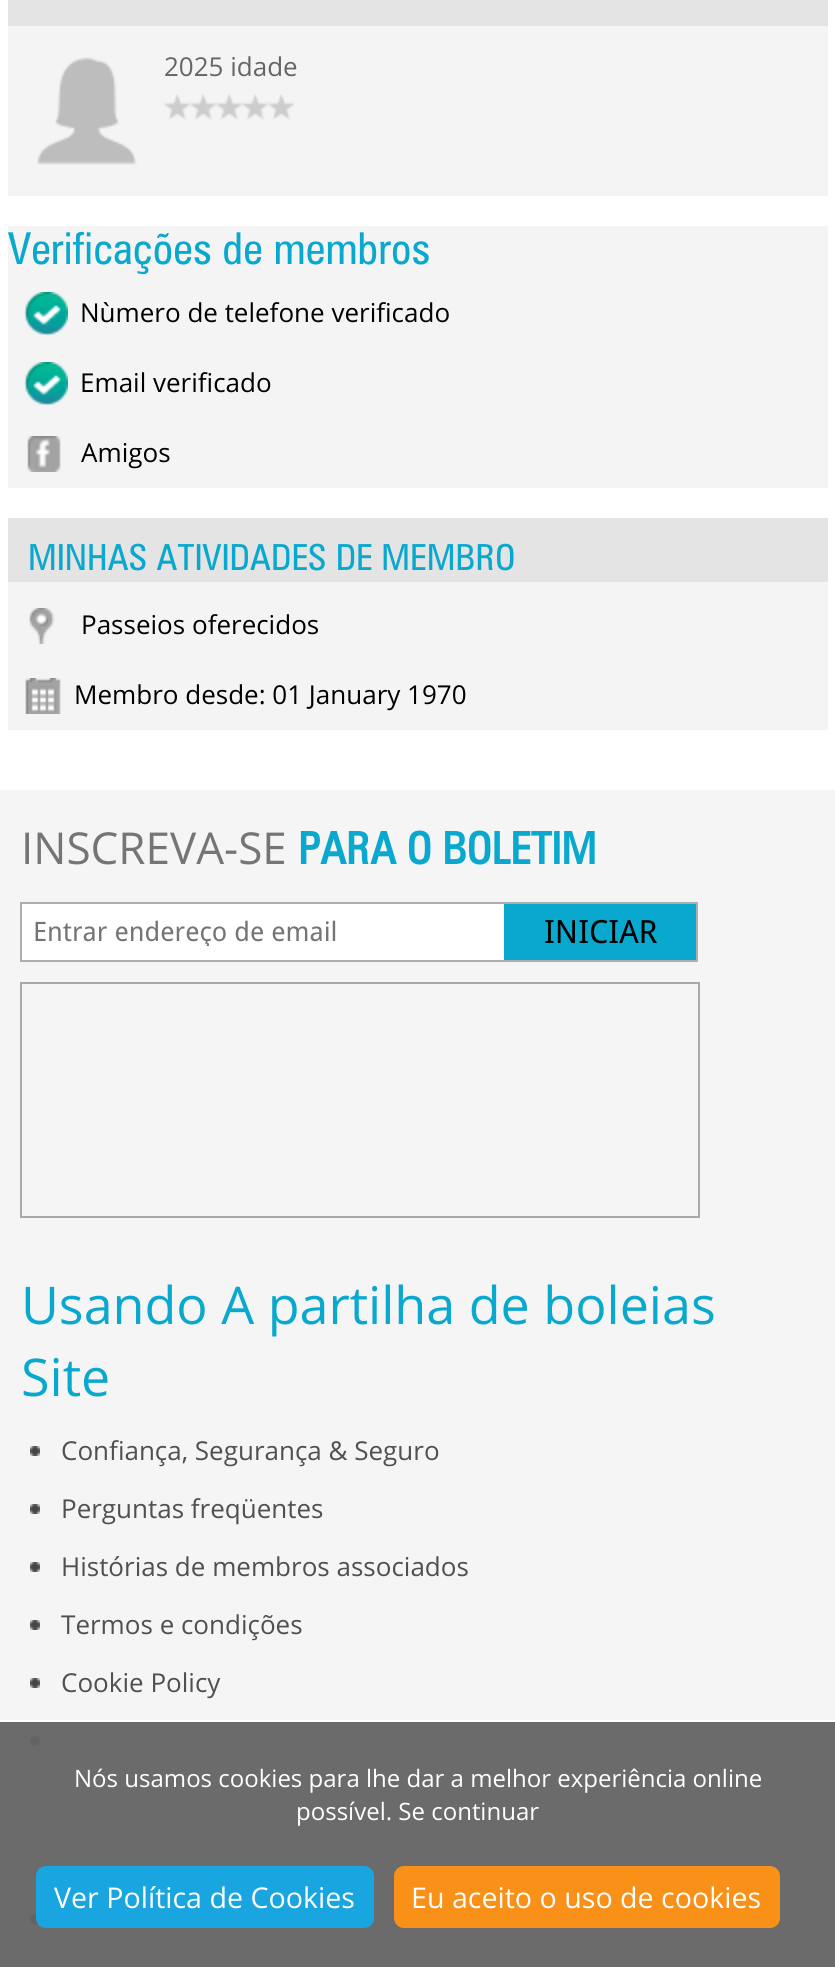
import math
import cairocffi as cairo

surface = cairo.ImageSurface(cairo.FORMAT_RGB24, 835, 1967)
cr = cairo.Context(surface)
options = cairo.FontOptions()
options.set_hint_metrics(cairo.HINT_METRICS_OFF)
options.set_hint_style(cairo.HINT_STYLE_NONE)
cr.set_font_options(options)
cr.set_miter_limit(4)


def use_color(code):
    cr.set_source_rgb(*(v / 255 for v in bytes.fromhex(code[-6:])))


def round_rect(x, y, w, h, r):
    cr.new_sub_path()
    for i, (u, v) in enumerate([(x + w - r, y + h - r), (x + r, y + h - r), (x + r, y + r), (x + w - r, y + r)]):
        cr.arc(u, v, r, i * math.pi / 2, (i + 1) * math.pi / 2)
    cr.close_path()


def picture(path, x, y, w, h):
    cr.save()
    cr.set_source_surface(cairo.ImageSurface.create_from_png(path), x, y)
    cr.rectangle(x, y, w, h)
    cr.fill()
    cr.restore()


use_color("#ffffff")
cr.paint()
use_color("#f4f4f4")
cr.rectangle(8, 26, 820, 170)
cr.fill()
use_color("#e3e4e3")
cr.rectangle(8, 0, 820, 26)
cr.fill()
picture("img1.png", 37, 57, 100, 108)
cr.select_font_face("Open Sans")
cr.set_font_size(26)
use_color("#666666")
cr.move_to(164, 76)
cr.show_text("2025 idade")
picture("img2.png", 164, 94, 130, 26)
use_color("#f4f4f4")
cr.rectangle(8, 226, 820, 262)
cr.fill()
cr.select_font_face("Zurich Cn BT")
cr.set_font_size(44)
use_color("#09a8ce")
cr.move_to(8, 264)
cr.show_text("Verificações de membros")
picture("img3.png", 24, 292, 44, 44)
cr.select_font_face("Open Sans")
cr.set_font_size(26)
use_color("#000000")
cr.move_to(80, 322)
cr.show_text("Nùmero de telefone verificado")
picture("img3.png", 24, 362, 44, 44)
cr.move_to(80, 392)
cr.show_text("Email verificado")
picture("img4.png", 27, 436, 34, 36)
cr.move_to(81, 462)
cr.show_text("Amigos")
use_color("#f4f4f4")
cr.rectangle(8, 582, 820, 148)
cr.fill()
use_color("#e3e4e3")
cr.rectangle(8, 518, 820, 64)
cr.fill()
cr.select_font_face("Zurich Cn BT")
cr.set_font_size(36)
use_color("#09a8ce")
cr.move_to(28, 570)
cr.show_text("MINHAS ATIVIDADES DE MEMBRO")
picture("img5.png", 29, 608, 26, 36)
cr.select_font_face("Open Sans")
cr.set_font_size(26)
use_color("#000000")
cr.move_to(81, 634)
cr.show_text("Passeios oferecidos")
picture("img6.png", 25, 678, 36, 36)
cr.move_to(74, 704)
cr.show_text("Membro desde: 01 January 1970")
use_color("#f5f5f5")
cr.rectangle(0, 790, 835, 930)
cr.fill()
use_color("#6b6b6b")
cr.rectangle(0, 1722, 835, 245)
cr.fill()
cr.set_font_size(44)
use_color("#757575")
cr.move_to(21, 864)
cr.show_text("INSCREVA-SE")
cr.select_font_face("Zurich Cn BT", cairo.FONT_SLANT_NORMAL, cairo.FONT_WEIGHT_BOLD)
use_color("#09a8ce")
cr.move_to(298, 864)
cr.show_text("PARA O BOLETIM")
use_color("#ffffff")
cr.rectangle(22, 904, 482, 56)
cr.fill()
use_color("#aeafae")
cr.rectangle(20, 902, 678, 2)
cr.fill()
cr.rectangle(20, 960, 484, 2)
cr.fill()
cr.rectangle(20, 902, 2, 60)
cr.fill()
cr.save()
cr.rectangle(32, 916, 462, 30)
cr.clip()
cr.select_font_face("Droid Sans")
cr.set_font_size(26.75)
use_color("#757575")
cr.move_to(33, 941)
cr.show_text("Entrar endereço de email")
cr.restore()
use_color("#09a8ce")
cr.rectangle(504, 904, 192, 56)
cr.fill()
use_color("#aeafae")
cr.rectangle(696, 902, 2, 60)
cr.fill()
cr.rectangle(504, 960, 194, 2)
cr.fill()
cr.select_font_face("Droid Sans")
cr.set_font_size(32)
use_color("#000000")
cr.move_to(544, 943)
cr.show_text("INICIAR")
cr.rectangle(21, 983, 678, 234)
use_color("#a9a9a9")
cr.stroke()
cr.select_font_face("Open Sans")
cr.set_font_size(52)
use_color("#09a8ce")
cr.move_to(21, 1324)
cr.show_text("Usando A partilha de boleias")
cr.move_to(21, 1396)
cr.show_text("Site")
picture("img7.png", 30, 1446, 10, 10)
cr.set_font_size(26)
use_color("#505050")
cr.move_to(61, 1460)
cr.show_text("Confiança, Segurança & Seguro")
picture("img7.png", 30, 1504, 10, 10)
cr.move_to(61, 1518)
cr.show_text("Perguntas freqüentes")
picture("img7.png", 30, 1562, 10, 10)
cr.move_to(61, 1576)
cr.show_text("Histórias de membros associados")
picture("img7.png", 30, 1620, 10, 10)
cr.move_to(61, 1634)
cr.show_text("Termos e condições")
picture("img7.png", 30, 1678, 10, 10)
cr.move_to(61, 1692)
cr.show_text("Cookie Policy")
picture("img8.png", 30, 1736, 10, 10)
picture("img9.png", 30, 1914, 8, 10)
cr.set_font_size(24)
use_color("#ffffff")
cr.move_to(74, 1787)
cr.show_text("Nós usamos cookies para lhe dar a melhor experiência online")
cr.move_to(296, 1820)
cr.show_text("possível. Se continuar")
use_color("#19a5df")
round_rect(36, 1866, 338, 62, 10)
cr.fill()
cr.set_font_size(28.6)
use_color("#ffffff")
cr.move_to(54, 1908)
cr.show_text("Ver Política de Cookies")
use_color("#f99017")
round_rect(394, 1866, 386, 62, 10)
cr.fill()
use_color("#ffffff")
cr.move_to(411, 1908)
cr.show_text("Eu aceito o uso de cookies")
surface.write_to_png("result.png")
